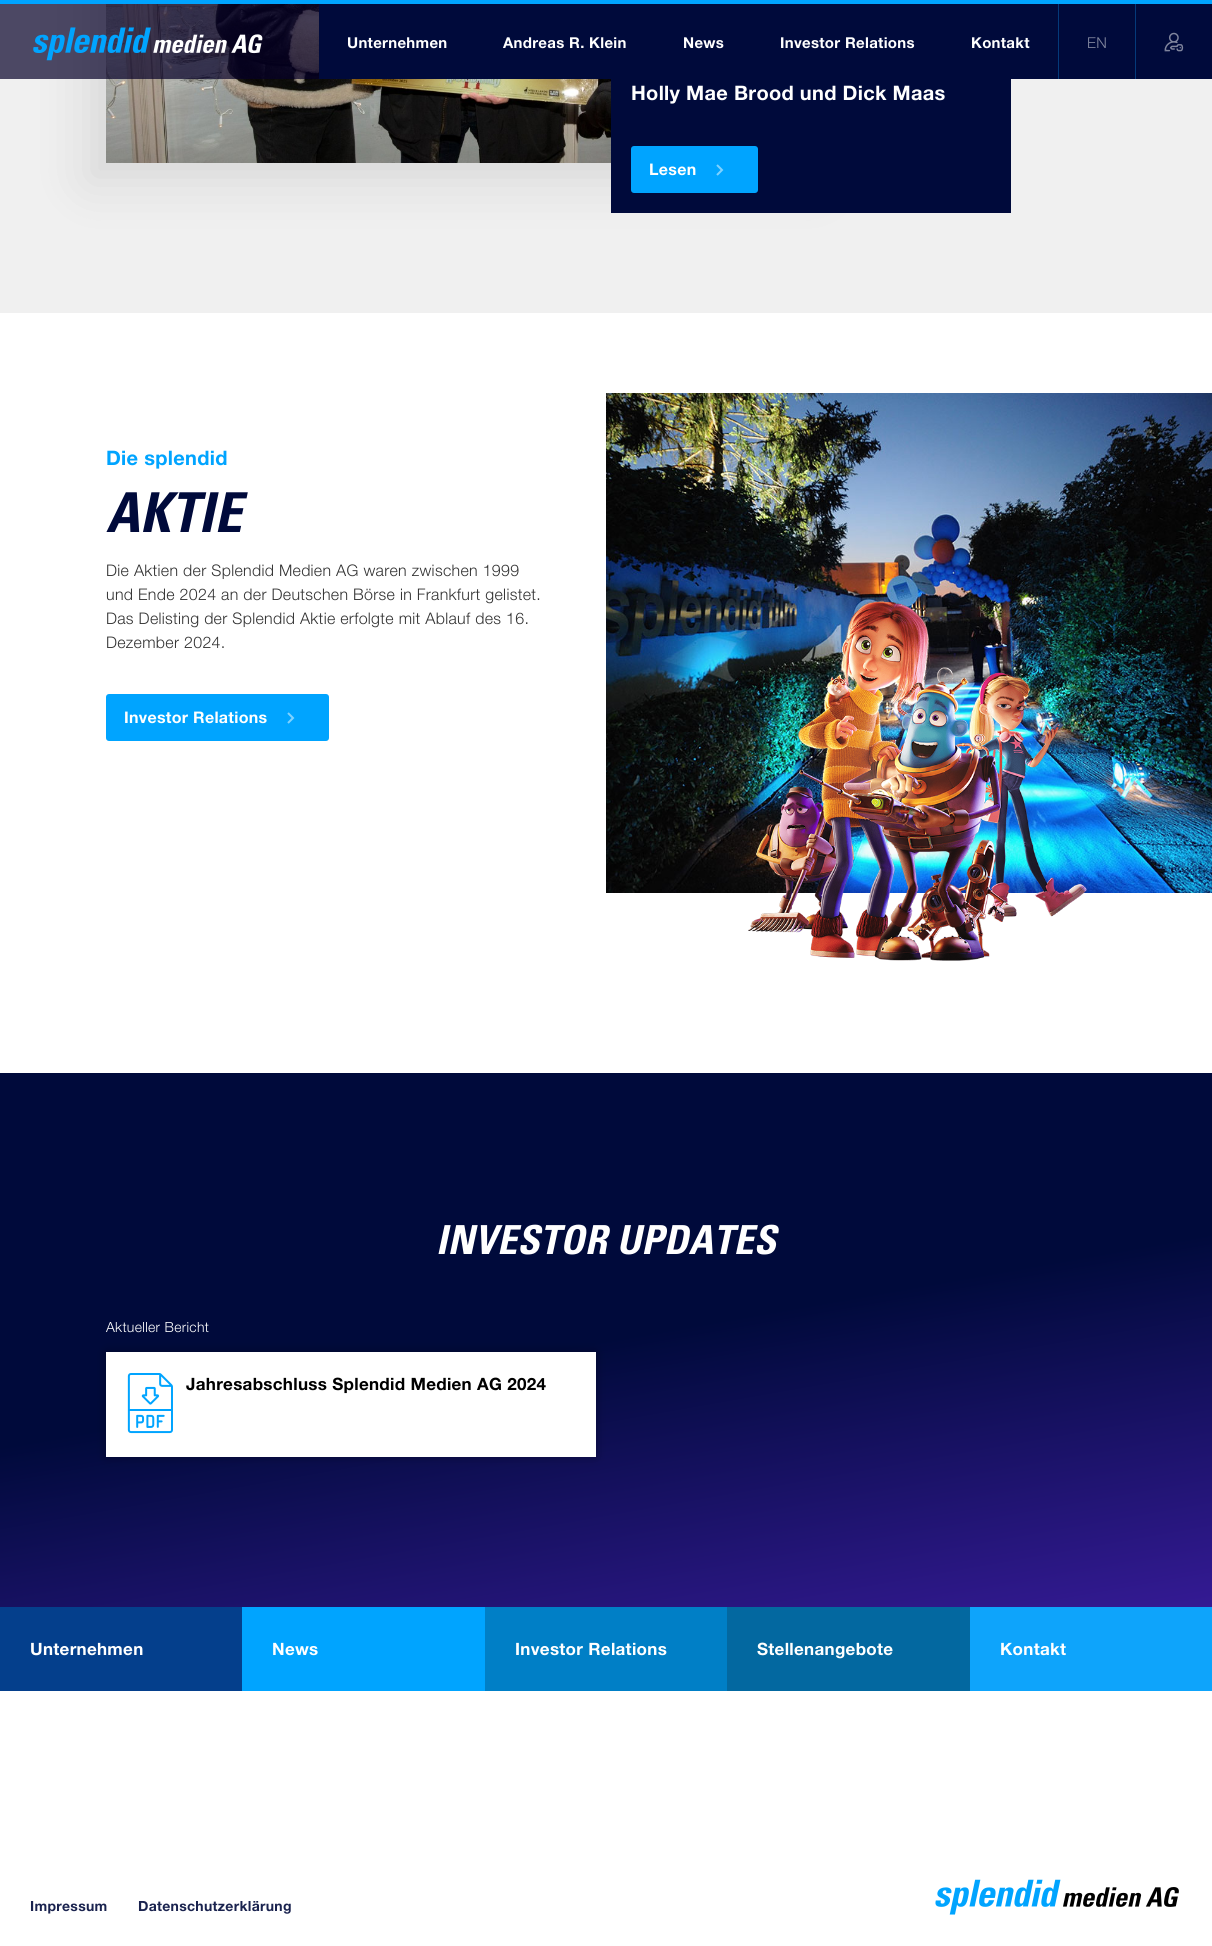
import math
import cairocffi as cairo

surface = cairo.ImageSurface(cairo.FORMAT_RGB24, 1212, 1946)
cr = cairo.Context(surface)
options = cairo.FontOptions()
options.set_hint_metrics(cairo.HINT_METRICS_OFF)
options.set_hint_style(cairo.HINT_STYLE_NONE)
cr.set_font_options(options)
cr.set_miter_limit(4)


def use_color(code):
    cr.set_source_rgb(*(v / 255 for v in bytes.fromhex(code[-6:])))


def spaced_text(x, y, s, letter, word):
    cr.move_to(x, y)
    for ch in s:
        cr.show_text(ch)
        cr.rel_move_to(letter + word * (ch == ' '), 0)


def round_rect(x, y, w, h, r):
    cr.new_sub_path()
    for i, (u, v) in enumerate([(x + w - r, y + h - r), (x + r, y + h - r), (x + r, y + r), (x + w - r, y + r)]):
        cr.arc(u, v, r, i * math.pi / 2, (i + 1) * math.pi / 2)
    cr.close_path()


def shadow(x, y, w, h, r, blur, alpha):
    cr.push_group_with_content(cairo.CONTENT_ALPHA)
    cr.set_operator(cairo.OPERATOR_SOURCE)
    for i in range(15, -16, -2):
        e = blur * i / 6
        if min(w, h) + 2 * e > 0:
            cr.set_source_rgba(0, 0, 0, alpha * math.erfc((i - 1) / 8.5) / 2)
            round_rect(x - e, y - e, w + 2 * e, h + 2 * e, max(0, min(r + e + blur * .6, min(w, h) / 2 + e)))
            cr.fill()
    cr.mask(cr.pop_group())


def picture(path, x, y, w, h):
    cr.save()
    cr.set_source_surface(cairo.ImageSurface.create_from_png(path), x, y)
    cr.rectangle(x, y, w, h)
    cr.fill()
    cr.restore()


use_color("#ffffff")
cr.paint()
use_color("#f0f0f0")
cr.rectangle(0, 4, 1212, 309)
cr.fill()
use_color("#000000")
shadow(86, -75, 735, 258, 0, 25, 0.1)
picture("img3.png", 106, 4, 505, 159)
cr.set_source_rgba(0.024, 0, 0.157, 0.7)
cr.rectangle(0, 4, 319, 75)
cr.fill()
use_color("#00a4ff")
cr.rectangle(0, 0, 1212, 4)
cr.fill()
picture("img1.png", 33, 27, 230, 34)
use_color("#000a3b")
cr.rectangle(319, 4, 893, 75)
cr.fill()
cr.select_font_face("Helvetica Neue", cairo.FONT_SLANT_NORMAL, cairo.FONT_WEIGHT_BOLD)
cr.set_font_size(15)
use_color("#ffffff")
spaced_text(347, 48, "Unternehmen", 0.3, 0)
spaced_text(503, 48, "Andreas R. Klein", 0.3, 0)
spaced_text(683, 48, "News", 0.3, 0)
spaced_text(780, 48, "Investor Relations", 0.3, 0)
spaced_text(971, 48, "Kontakt", 0.3, 0)
use_color("#043a7a")
cr.rectangle(1058, 4, 1, 75)
cr.fill()
cr.select_font_face("Helvetica Neue Light")
use_color("#80859d")
spaced_text(1087, 48, "EN", 0.3, 0)
use_color("#043a7a")
cr.rectangle(1135, 4, 1, 75)
cr.fill()
picture("img2.png", 1164, 32, 20, 20)
use_color("#000a3b")
cr.rectangle(611, 79, 400, 134)
cr.fill()
cr.select_font_face("Helvetica Neue", cairo.FONT_SLANT_NORMAL, cairo.FONT_WEIGHT_BOLD)
cr.set_font_size(20)
use_color("#ffffff")
spaced_text(631, 100, "Holly Mae Brood und Dick Maas", 0.3, 0)
use_color("#00a4ff")
round_rect(631, 146, 127, 47, 3)
cr.fill()
cr.set_font_size(16)
use_color("#ffffff")
spaced_text(649, 175, "Lesen", 0.3, 0)
cr.new_path()
cr.move_to(717, 175)
cr.line_to(722, 170)
cr.line_to(717, 165)
use_color("#80d2ff")
cr.stroke()
cr.set_font_size(20)
use_color("#00a4ff")
spaced_text(106, 465, "Die splendid", 0.3, 0)
cr.select_font_face("Univers", cairo.FONT_SLANT_ITALIC, cairo.FONT_WEIGHT_BOLD)
cr.set_font_size(55)
use_color("#000a3b")
spaced_text(106, 532, "AKTIE", 0.3, 0)
cr.select_font_face("Helvetica Neue Light")
cr.set_font_size(16)
use_color("#333333")
spaced_text(106, 576, "Die Aktien der Splendid Medien AG waren zwischen 1999", 0.3, 0)
spaced_text(106, 600, "und Ende 2024 an der Deutschen Börse in Frankfurt gelistet.", 0.3, 0)
spaced_text(106, 624, "Das Delisting der Splendid Aktie erfolgte mit Ablauf des 16.", 0.3, 0)
spaced_text(106, 648, "Dezember 2024.", 0.3, 0)
use_color("#00a4ff")
round_rect(106, 694, 223, 47, 3)
cr.fill()
cr.select_font_face("Helvetica Neue", cairo.FONT_SLANT_NORMAL, cairo.FONT_WEIGHT_BOLD)
use_color("#ffffff")
spaced_text(124, 723, "Investor Relations", 0.3, 0)
cr.new_path()
cr.move_to(288, 723)
cr.line_to(293, 718)
cr.line_to(288, 713)
use_color("#80d2ff")
cr.stroke()
picture("img4.png", 606, 393, 606, 500)
picture("img5.png", 748, 600, 339, 361)
gradient = cairo.LinearGradient(670, 1703, 542, 977)
gradient.add_color_stop_rgba(0, 0.204, 0.102, 0.58, 1)
gradient.add_color_stop_rgba(0.5, 0, 0.039, 0.231, 1)
cr.set_source(gradient)
cr.rectangle(0, 1073, 1212, 534)
cr.fill()
cr.select_font_face("Univers", cairo.FONT_SLANT_ITALIC, cairo.FONT_WEIGHT_BOLD)
cr.set_font_size(40)
use_color("#ffffff")
spaced_text(436, 1254, "INVESTOR UPDATES", 0.3, 0)
cr.select_font_face("Helvetica Neue Light")
cr.set_font_size(14)
spaced_text(106, 1332, "Aktueller Bericht", 0.3, 0)
use_color("#000000")
shadow(106, 1352, 490, 105, 0, 5, 0.3)
use_color("#ffffff")
cr.rectangle(106, 1352, 490, 105)
cr.fill()
picture("img6.png", 127, 1373, 46, 61)
cr.select_font_face("Helvetica Neue", cairo.FONT_SLANT_NORMAL, cairo.FONT_WEIGHT_BOLD)
cr.set_font_size(17)
use_color("#000000")
spaced_text(186, 1390, "Jahresabschluss Splendid Medien AG 2024", 0.3, 0)
use_color("#043f8c")
cr.rectangle(0, 1607, 242, 84)
cr.fill()
use_color("#ffffff")
spaced_text(30, 1655, "Unternehmen", 0.3, 0)
use_color("#00a4ff")
cr.rectangle(242, 1607, 243, 84)
cr.fill()
use_color("#ffffff")
spaced_text(272, 1655, "News", 0.3, 0)
use_color("#007fc6")
cr.rectangle(485, 1607, 242, 84)
cr.fill()
use_color("#ffffff")
spaced_text(515, 1655, "Investor Relations", 0.3, 0)
use_color("#0368a0")
cr.rectangle(727, 1607, 243, 84)
cr.fill()
use_color("#ffffff")
spaced_text(757, 1655, "Stellenangebote", 0.3, 0)
use_color("#0ea4fb")
cr.rectangle(970, 1607, 242, 84)
cr.fill()
use_color("#ffffff")
spaced_text(1000, 1655, "Kontakt", 0.3, 0)
cr.set_font_size(14)
use_color("#1a234f")
spaced_text(30, 1911, "Impressum", 0.3, 0)
spaced_text(138, 1911, "Datenschutzerklärung", 0.3, 0)
picture("img7.png", 935, 1879, 244, 36)
surface.write_to_png("result.png")
